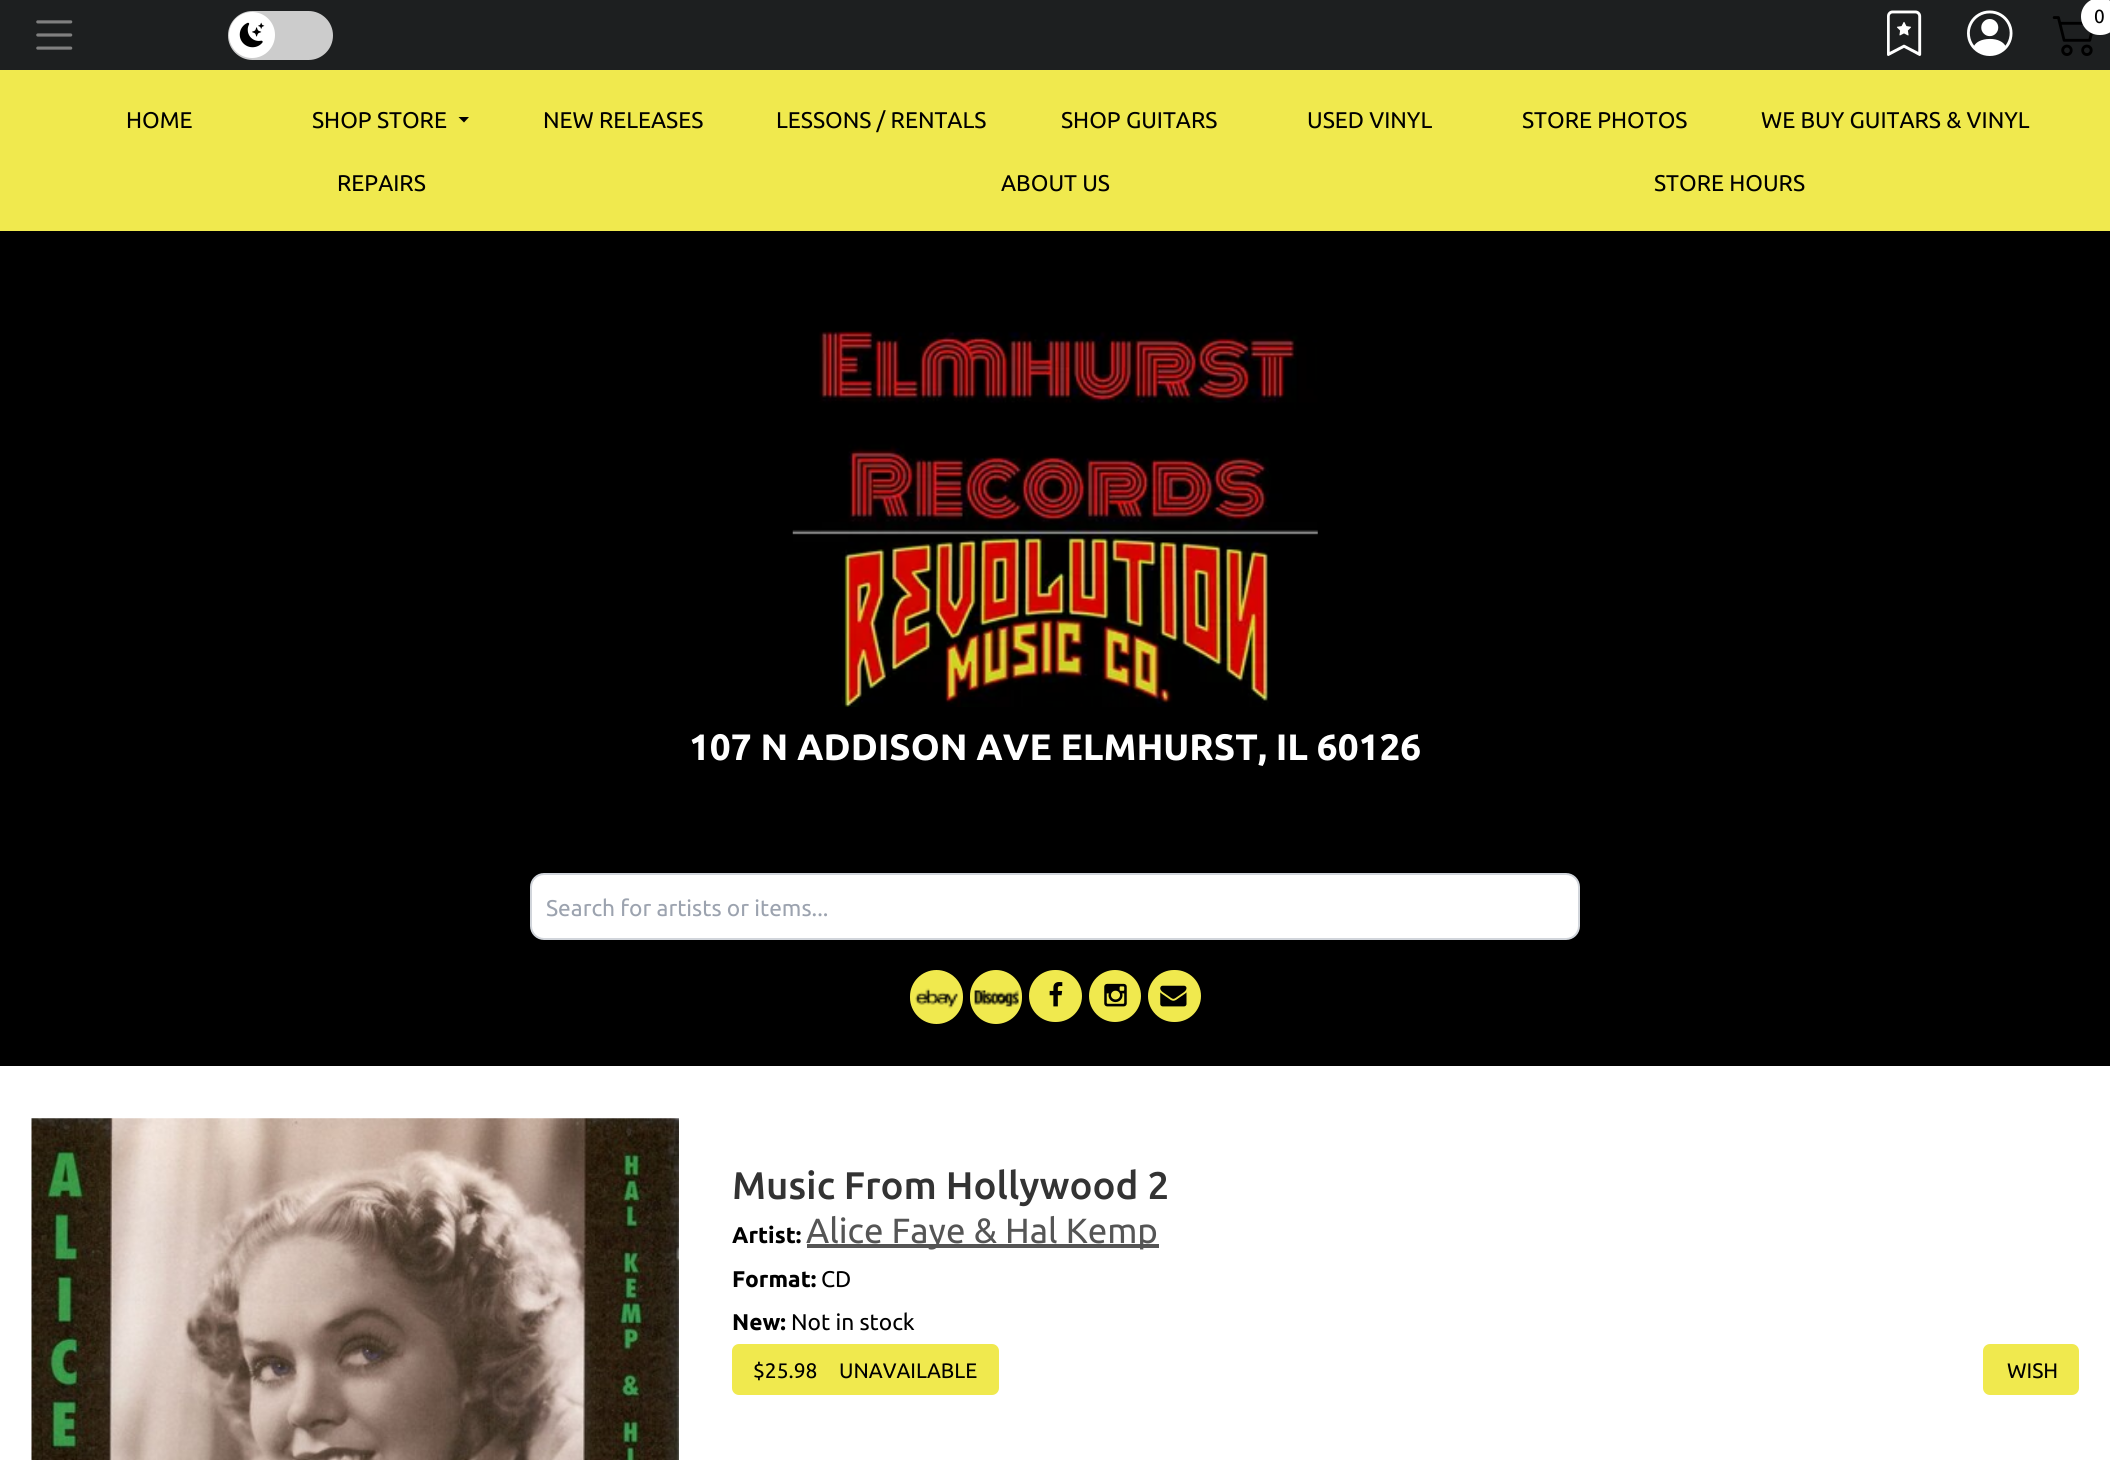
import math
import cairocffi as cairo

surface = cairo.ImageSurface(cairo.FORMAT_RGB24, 2110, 1460)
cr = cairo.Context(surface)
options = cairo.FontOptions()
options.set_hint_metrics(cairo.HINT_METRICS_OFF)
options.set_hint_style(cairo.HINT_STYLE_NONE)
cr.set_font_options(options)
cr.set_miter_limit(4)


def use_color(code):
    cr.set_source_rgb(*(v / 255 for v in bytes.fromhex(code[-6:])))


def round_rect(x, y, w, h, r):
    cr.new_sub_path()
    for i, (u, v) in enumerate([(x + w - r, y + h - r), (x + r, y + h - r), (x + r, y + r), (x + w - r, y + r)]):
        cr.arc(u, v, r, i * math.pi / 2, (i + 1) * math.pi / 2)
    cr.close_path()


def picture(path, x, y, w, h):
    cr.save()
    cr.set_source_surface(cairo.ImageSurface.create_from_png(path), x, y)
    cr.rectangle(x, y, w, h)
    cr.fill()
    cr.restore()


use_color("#ffffff")
cr.paint()
use_color("#1d1f20")
cr.rectangle(0, 0, 2110, 70)
cr.fill()
picture("img1.png", 36, 20, 37, 30)
use_color("#cccccc")
round_rect(228, 11, 105, 49, 24.5)
cr.fill()
use_color("#ffffff")
cr.arc(252, 35, 23, 0, 2 * math.pi)
cr.fill()
picture("img2.png", 239, 22, 26, 26)
picture("img3.png", 1887, 10, 35, 46)
picture("img4.png", 1967, 10, 46, 46)
picture("img5.png", 2052, 16, 41, 40)
round_rect(2081, -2, 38, 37, 18.5)
cr.fill()
cr.select_font_face("Ubuntu")
cr.set_font_size(19)
use_color("#000000")
cr.move_to(2094, 23)
cr.show_text("0")
cr.rectangle(0, 231, 2110, 835)
cr.fill()
use_color("#f0e94e")
cr.rectangle(0, 70, 2110, 161)
cr.fill()
cr.set_font_size(22.75)
use_color("#000000")
cr.move_to(126, 128)
cr.show_text("HOME")
cr.move_to(312, 128)
cr.show_text("SHOP STORE")
cr.new_path()
cr.move_to(458.5, 117)
cr.line_to(469, 117)
cr.line_to(464, 122.5)
cr.close_path()
cr.fill()
cr.move_to(543, 128)
cr.show_text("NEW RELEASES")
cr.move_to(776, 128)
cr.show_text("LESSONS / RENTALS")
cr.move_to(1061, 128)
cr.show_text("SHOP GUITARS")
cr.move_to(1307, 128)
cr.show_text("USED VINYL")
cr.move_to(1522, 128)
cr.show_text("STORE PHOTOS")
cr.move_to(1761, 128)
cr.show_text("WE BUY GUITARS & VINYL")
cr.move_to(337, 191)
cr.show_text("REPAIRS")
cr.move_to(1001, 191)
cr.show_text("ABOUT US")
cr.move_to(1654, 191)
cr.show_text("STORE HOURS")
picture("img6.png", 792, 330, 526, 377)
cr.select_font_face("Ubuntu", cairo.FONT_SLANT_NORMAL, cairo.FONT_WEIGHT_BOLD)
cr.set_font_size(36.75)
use_color("#ffffff")
cr.move_to(689, 760)
cr.show_text("107 N ADDISON AVE ELMHURST, IL 60126")
round_rect(531, 874, 1048, 65, 13)
cr.fill_preserve()
use_color("#d1d5db")
cr.stroke()
cr.select_font_face("Ubuntu")
cr.set_font_size(22.75)
use_color("#9ca3af")
cr.move_to(546, 916)
cr.show_text("Search for artists or items...")
use_color("#f0e94e")
round_rect(910, 970, 53, 54, 26.5)
cr.fill()
picture("img7.png", 915, 988, 44, 21)
round_rect(970, 970, 52, 54, 26)
cr.fill()
picture("img8.png", 974, 990, 45, 17)
round_rect(1029, 970, 53, 52, 26)
cr.fill()
picture("img9.png", 1049, 982, 14, 25)
cr.arc(1115, 996, 26, 0, 2 * math.pi)
cr.fill()
picture("img10.png", 1104, 983, 23, 24)
round_rect(1148, 970, 53, 52, 26)
cr.fill()
picture("img11.png", 1160, 985, 27, 22)
picture("img12.png", 31, 1118, 648, 342)
cr.select_font_face("Ubuntu Medium")
cr.set_font_size(38.5)
use_color("#333333")
cr.move_to(732, 1199)
cr.show_text("Music From Hollywood 2")
cr.select_font_face("Ubuntu", cairo.FONT_SLANT_NORMAL, cairo.FONT_WEIGHT_BOLD)
cr.set_font_size(22.75)
use_color("#000000")
cr.move_to(732, 1243)
cr.show_text("Artist:")
use_color("#555555")
cr.rectangle(807, 1244, 352, 4)
cr.fill()
cr.select_font_face("Ubuntu")
cr.set_font_size(35)
cr.move_to(806, 1243)
cr.show_text("Alice Faye & Hal Kemp")
cr.select_font_face("Ubuntu", cairo.FONT_SLANT_NORMAL, cairo.FONT_WEIGHT_BOLD)
cr.set_font_size(22.75)
use_color("#000000")
cr.move_to(732, 1287)
cr.show_text("Format:")
cr.select_font_face("Ubuntu")
cr.move_to(821, 1287)
cr.show_text("CD")
cr.select_font_face("Ubuntu", cairo.FONT_SLANT_NORMAL, cairo.FONT_WEIGHT_BOLD)
cr.move_to(732, 1330)
cr.show_text("New:")
cr.select_font_face("Ubuntu")
cr.move_to(791, 1330)
cr.show_text("Not in stock")
use_color("#f0e94e")
round_rect(732, 1344, 267, 51, 7)
cr.fill()
cr.set_font_size(21)
use_color("#000000")
cr.move_to(753, 1378)
cr.show_text("$25.98")
cr.move_to(839, 1378)
cr.show_text("UNAVAILABLE")
use_color("#f0e94e")
round_rect(1983, 1344, 96, 51, 7)
cr.fill()
use_color("#000000")
cr.move_to(2007, 1378)
cr.show_text("WISH")
surface.write_to_png("result.png")
